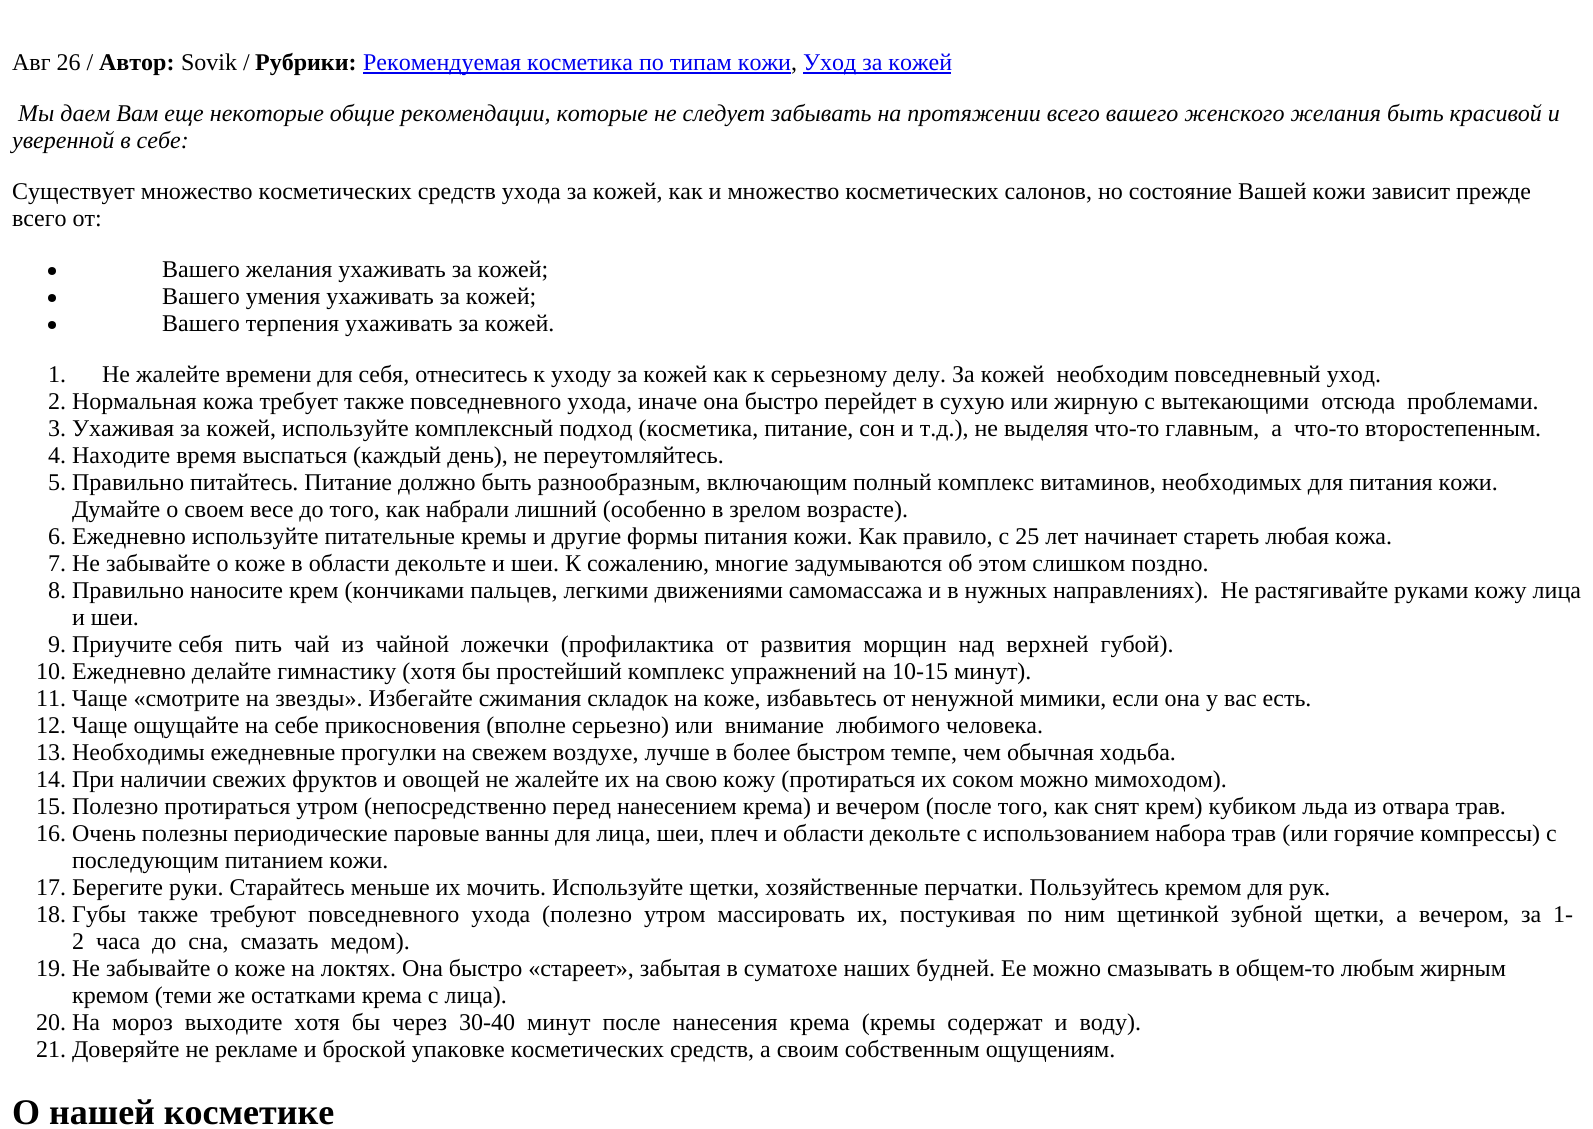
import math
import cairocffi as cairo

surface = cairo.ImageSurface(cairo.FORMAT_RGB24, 1593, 1129)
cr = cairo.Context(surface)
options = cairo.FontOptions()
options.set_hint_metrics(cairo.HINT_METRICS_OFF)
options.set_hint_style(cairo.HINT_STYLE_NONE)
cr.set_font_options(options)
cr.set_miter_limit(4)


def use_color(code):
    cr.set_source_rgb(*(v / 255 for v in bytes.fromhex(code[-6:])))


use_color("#ffffff")
cr.paint()
cr.select_font_face("Liberation Serif")
cr.set_font_size(24)
use_color("#000000")
cr.move_to(12, 70)
cr.show_text("Авг 26 /")
cr.select_font_face("Liberation Serif", cairo.FONT_SLANT_NORMAL, cairo.FONT_WEIGHT_BOLD)
cr.move_to(99, 70)
cr.show_text("Автор:")
cr.select_font_face("Liberation Serif")
cr.move_to(181, 70)
cr.show_text("Sovik /")
cr.select_font_face("Liberation Serif", cairo.FONT_SLANT_NORMAL, cairo.FONT_WEIGHT_BOLD)
cr.move_to(255, 70)
cr.show_text("Рубрики:")
use_color("#0000ee")
cr.rectangle(363, 72, 428, 2)
cr.fill()
cr.select_font_face("Liberation Serif")
cr.move_to(363, 70)
cr.show_text("Рекомендуемая косметика по типам кожи")
use_color("#000000")
cr.move_to(791, 70)
cr.show_text(",")
use_color("#0000ee")
cr.rectangle(803, 72, 148, 2)
cr.fill()
cr.move_to(803, 70)
cr.show_text("Уход за кожей")
cr.select_font_face("Liberation Serif", cairo.FONT_SLANT_ITALIC)
use_color("#000000")
cr.move_to(18, 121)
cr.show_text("Мы даем Вам еще некоторые общие рекомендации, которые не следует забывать на протяжении всего вашего женского желания быть красивой и")
cr.move_to(12, 148)
cr.show_text("уверенной в себе:")
cr.select_font_face("Liberation Serif")
cr.move_to(12, 199)
cr.show_text("Существует множество косметических средств ухода за кожей, как и множество косметических салонов, но состояние Вашей кожи зависит прежде")
cr.move_to(12, 226)
cr.show_text("всего от:")
cr.new_path()
cr.arc(52, 271, 4, 0, 2 * math.pi)
cr.fill()
cr.move_to(162, 277)
cr.show_text("Вашего желания ухаживать за кожей;")
cr.new_path()
cr.arc(52, 298, 4, 0, 2 * math.pi)
cr.fill()
cr.move_to(162, 304)
cr.show_text("Вашего умения ухаживать за кожей;")
cr.new_path()
cr.arc(52, 325, 4, 0, 2 * math.pi)
cr.fill()
cr.move_to(162, 331)
cr.show_text("Вашего терпения ухаживать за кожей.")
cr.move_to(48, 382)
cr.show_text("1.")
cr.move_to(102, 382)
cr.show_text("Не жалейте времени для себя, отнеситесь к уходу за кожей как к серьезному делу. За кожей  необходим повседневный уход.")
cr.move_to(48, 409)
cr.show_text("2. Нормальная кожа требует также повседневного ухода, иначе она быстро перейдет в сухую или жирную с вытекающими  отсюда  проблемами.")
cr.move_to(48, 436)
cr.show_text("3. Ухаживая за кожей, используйте комплексный подход (косметика, питание, сон и т.д.), не выделяя что-то главным,  а  что-то второстепенным.")
cr.move_to(48, 463)
cr.show_text("4. Находите время выспаться (каждый день), не переутомляйтесь.")
cr.move_to(48, 490)
cr.show_text("5. Правильно питайтесь. Питание должно быть разнообразным, включающим полный комплекс витаминов, необходимых для питания кожи.")
cr.move_to(72, 517)
cr.show_text("Думайте о своем весе до того, как набрали лишний (особенно в зрелом возрасте).")
cr.move_to(48, 544)
cr.show_text("6. Ежедневно используйте питательные кремы и другие формы питания кожи. Как правило, с 25 лет начинает стареть любая кожа.")
cr.move_to(48, 571)
cr.show_text("7. Не забывайте о коже в области декольте и шеи. К сожалению, многие задумываются об этом слишком поздно.")
cr.move_to(48, 598)
cr.show_text("8. Правильно наносите крем (кончиками пальцев, легкими движениями самомассажа и в нужных направлениях).  Не растягивайте руками кожу лица")
cr.move_to(72, 625)
cr.show_text("и шеи.")
cr.move_to(48, 652)
cr.show_text("9. Приучите себя  пить  чай  из  чайной  ложечки  (профилактика  от  развития  морщин  над  верхней  губой).")
cr.move_to(36, 679)
cr.show_text("10. Ежедневно делайте гимнастику (хотя бы простейший комплекс упражнений на 10-15 минут).")
cr.move_to(36, 706)
cr.show_text("11. Чаще «смотрите на звезды». Избегайте сжимания складок на коже, избавьтесь от ненужной мимики, если она у вас есть.")
cr.move_to(36, 733)
cr.show_text("12. Чаще ощущайте на себе прикосновения (вполне серьезно) или  внимание  любимого человека.")
cr.move_to(36, 760)
cr.show_text("13. Необходимы ежедневные прогулки на свежем воздухе, лучше в более быстром темпе, чем обычная ходьба.")
cr.move_to(36, 787)
cr.show_text("14. При наличии свежих фруктов и овощей не жалейте их на свою кожу (протираться их соком можно мимоходом).")
cr.move_to(36, 814)
cr.show_text("15. Полезно протираться утром (непосредственно перед нанесением крема) и вечером (после того, как снят крем) кубиком льда из отвара трав.")
cr.move_to(36, 841)
cr.show_text("16. Очень полезны периодические паровые ванны для лица, шеи, плеч и области декольте с использованием набора трав (или горячие компрессы) с")
cr.move_to(72, 868)
cr.show_text("последующим питанием кожи.")
cr.move_to(36, 895)
cr.show_text("17. Берегите руки. Старайтесь меньше их мочить. Используйте щетки, хозяйственные перчатки. Пользуйтесь кремом для рук.")
cr.move_to(36, 922)
cr.show_text("18. Губы  также  требуют  повседневного  ухода  (полезно  утром  массировать  их,  постукивая  по  ним  щетинкой  зубной  щетки,  а  вечером,  за  1-")
cr.move_to(72, 949)
cr.show_text("2  часа  до  сна,  смазать  медом).")
cr.move_to(36, 976)
cr.show_text("19. Не забывайте о коже на локтях. Она быстро «стареет», забытая в суматохе наших будней. Ее можно смазывать в общем-то любым жирным")
cr.move_to(72, 1003)
cr.show_text("кремом (теми же остатками крема с лица).")
cr.move_to(36, 1030)
cr.show_text("20. На  мороз  выходите  хотя  бы  через  30-40  минут  после  нанесения  крема  (кремы  содержат  и  воду).")
cr.move_to(36, 1057)
cr.show_text("21. Доверяйте не рекламе и броской упаковке косметических средств, а своим собственным ощущениям.")
cr.select_font_face("Liberation Serif", cairo.FONT_SLANT_NORMAL, cairo.FONT_WEIGHT_BOLD)
cr.set_font_size(36)
cr.move_to(12, 1124)
cr.show_text("О нашей косметике")
surface.write_to_png("result.png")
